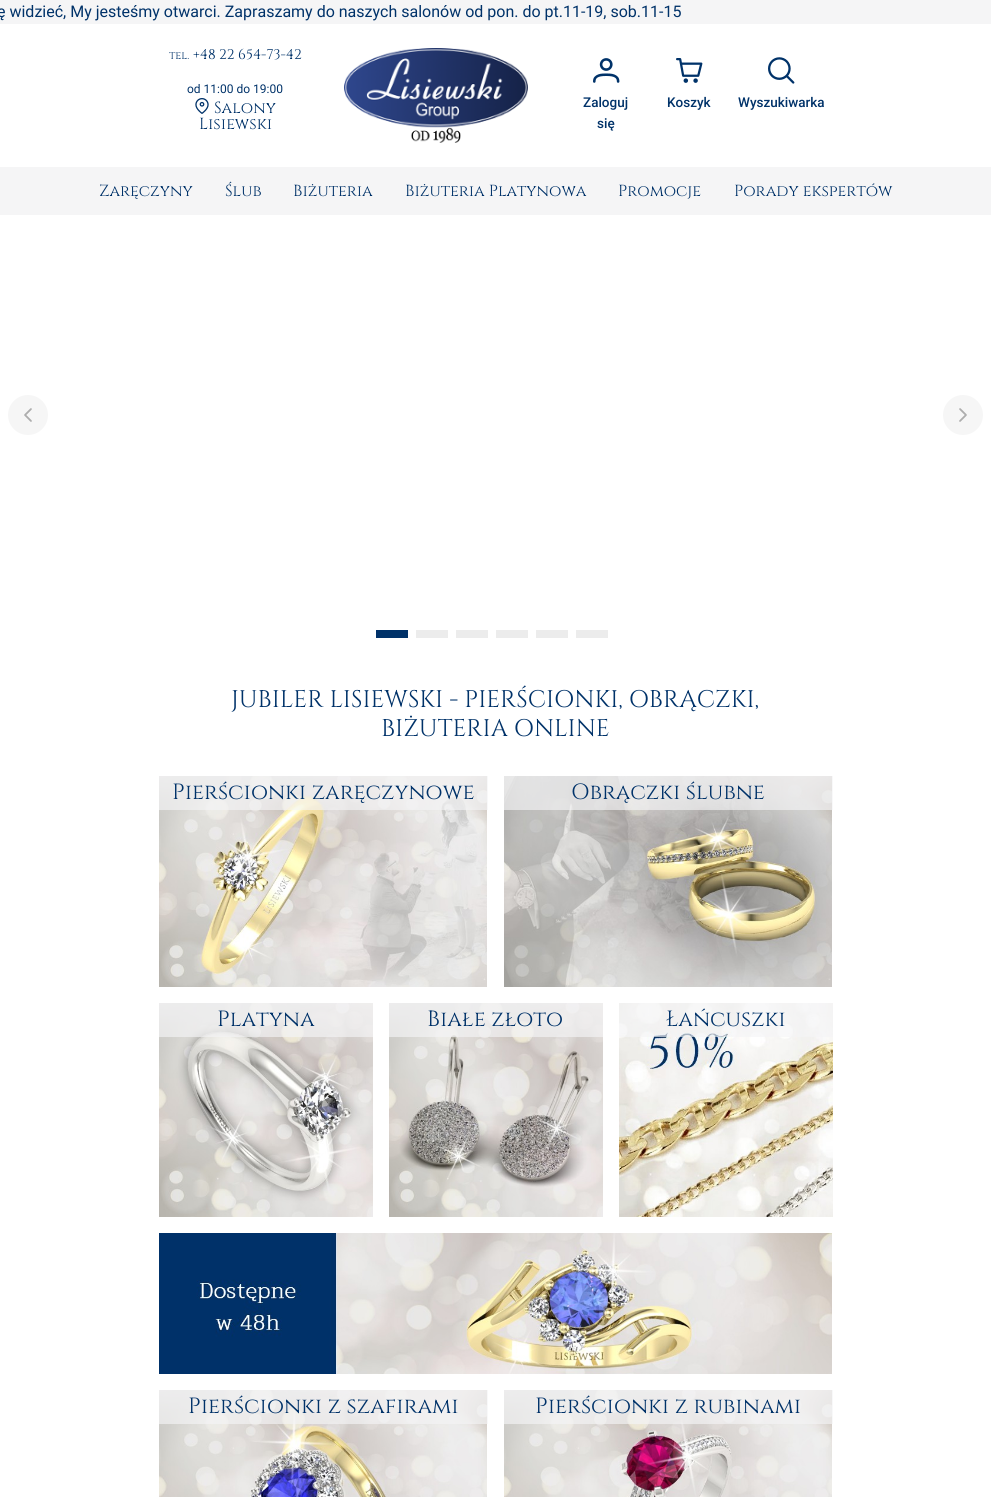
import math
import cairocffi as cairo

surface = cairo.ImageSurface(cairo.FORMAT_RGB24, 991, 1497)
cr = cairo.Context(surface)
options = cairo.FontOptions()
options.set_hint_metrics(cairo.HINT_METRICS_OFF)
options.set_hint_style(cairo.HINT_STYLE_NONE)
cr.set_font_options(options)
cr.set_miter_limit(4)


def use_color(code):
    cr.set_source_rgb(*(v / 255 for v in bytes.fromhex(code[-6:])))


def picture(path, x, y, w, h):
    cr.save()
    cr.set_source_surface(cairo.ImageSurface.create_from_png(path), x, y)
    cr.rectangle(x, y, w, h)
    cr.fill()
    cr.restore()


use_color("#ffffff")
cr.paint()
use_color("#f5f5f6")
cr.rectangle(0, 0, 991, 24)
cr.fill()
cr.select_font_face("Roboto")
cr.set_font_size(16)
use_color("#003269")
cr.move_to(-3, 17)
cr.show_text("ę widzieć, My jesteśmy otwarci. Zapraszamy do naszych salonów od pon. do pt.11-19, sob.11-15")
cr.select_font_face("Cinzel")
cr.set_font_size(11)
cr.move_to(169, 59)
cr.show_text("tel.")
cr.set_font_size(14)
cr.move_to(193, 59)
cr.show_text("+48 22 654-73-42")
cr.select_font_face("Roboto")
cr.set_font_size(12)
cr.move_to(187, 93)
cr.show_text("od 11:00 do 19:00")
picture("img1.png", 195, 98, 14, 16)
cr.select_font_face("Cinzel")
cr.set_font_size(16)
cr.move_to(214, 113)
cr.show_text("Salony")
cr.move_to(199, 129)
cr.show_text("Lisiewski")
picture("img2.png", 344, 48, 184, 95)
picture("img3.png", 593, 58, 27, 25)
cr.select_font_face("Roboto Medium")
cr.set_font_size(13.5)
cr.move_to(583, 107)
cr.show_text("Zaloguj")
cr.move_to(597, 128)
cr.show_text("się")
picture("img4.png", 676, 58, 27, 25)
cr.move_to(667, 107)
cr.show_text("Koszyk")
picture("img5.png", 768, 57, 27, 27)
cr.move_to(738, 107)
cr.show_text("Wyszukiwarka")
use_color("#f5f5f6")
cr.rectangle(0, 167, 991, 48)
cr.fill()
cr.select_font_face("Cinzel")
cr.set_font_size(16)
use_color("#003269")
cr.move_to(99, 196)
cr.show_text("Zaręczyny")
cr.move_to(225, 196)
cr.show_text("Ślub")
cr.move_to(293, 196)
cr.show_text("Biżuteria")
cr.move_to(405, 196)
cr.show_text("Biżuteria Platynowa")
cr.move_to(618, 196)
cr.show_text("Promocje")
cr.move_to(734, 196)
cr.show_text("Porady ekspertów")
use_color("#f6f6f6")
cr.new_path()
cr.arc(28, 415, 20, 0, 2 * math.pi)
cr.fill()
picture("img6.png", 24, 408, 8, 14)
cr.arc(963, 415, 20, 0, 2 * math.pi)
cr.fill()
picture("img7.png", 959, 408, 8, 14)
use_color("#003269")
cr.rectangle(376, 630, 32, 8)
cr.fill()
use_color("#ececec")
cr.rectangle(416, 630, 32, 8)
cr.fill()
cr.rectangle(456, 630, 32, 8)
cr.fill()
cr.rectangle(496, 630, 32, 8)
cr.fill()
cr.rectangle(536, 630, 32, 8)
cr.fill()
cr.rectangle(576, 630, 32, 8)
cr.fill()
cr.set_font_size(24)
use_color("#003269")
cr.move_to(231, 707)
cr.show_text("JUBILER LISIEWSKI - PIERŚCIONKI, OBRĄCZKI,")
cr.move_to(381, 736)
cr.show_text("BIŻUTERIA ONLINE")
picture("img8.png", 159, 776, 328, 211)
cr.set_source_rgba(0.961, 0.961, 0.965, 0.65)
cr.rectangle(159, 776, 329, 34)
cr.fill()
cr.set_font_size(22)
use_color("#003269")
cr.move_to(172, 799)
cr.show_text("Pierścionki zaręczynowe")
picture("img9.png", 504, 776, 328, 211)
cr.set_source_rgba(0.961, 0.961, 0.965, 0.65)
cr.rectangle(504, 776, 329, 34)
cr.fill()
use_color("#003269")
cr.move_to(571, 799)
cr.show_text("Obrączki ślubne")
picture("img10.png", 159, 1003, 214, 214)
cr.set_source_rgba(0.961, 0.961, 0.965, 0.65)
cr.rectangle(159, 1003, 214, 34)
cr.fill()
use_color("#003269")
cr.move_to(217, 1026)
cr.show_text("Platyna")
picture("img11.png", 389, 1003, 214, 214)
cr.set_source_rgba(0.961, 0.961, 0.965, 0.65)
cr.rectangle(389, 1003, 214, 34)
cr.fill()
use_color("#003269")
cr.move_to(427, 1026)
cr.show_text("Białe złoto")
picture("img12.png", 619, 1003, 214, 214)
cr.set_source_rgba(0.961, 0.961, 0.965, 0.65)
cr.rectangle(619, 1003, 214, 34)
cr.fill()
use_color("#003269")
cr.move_to(666, 1026)
cr.show_text("Łańcuszki")
picture("img13.png", 159, 1233, 673, 141)
picture("img14.png", 159, 1390, 328, 107)
cr.set_source_rgba(0.961, 0.961, 0.965, 0.65)
cr.rectangle(159, 1390, 329, 34)
cr.fill()
use_color("#003269")
cr.move_to(188, 1413)
cr.show_text("Pierścionki z szafirami")
picture("img15.png", 504, 1390, 328, 107)
cr.set_source_rgba(0.961, 0.961, 0.965, 0.65)
cr.rectangle(504, 1390, 329, 34)
cr.fill()
use_color("#003269")
cr.move_to(535, 1413)
cr.show_text("Pierścionki z rubinami")
surface.write_to_png("result.png")
